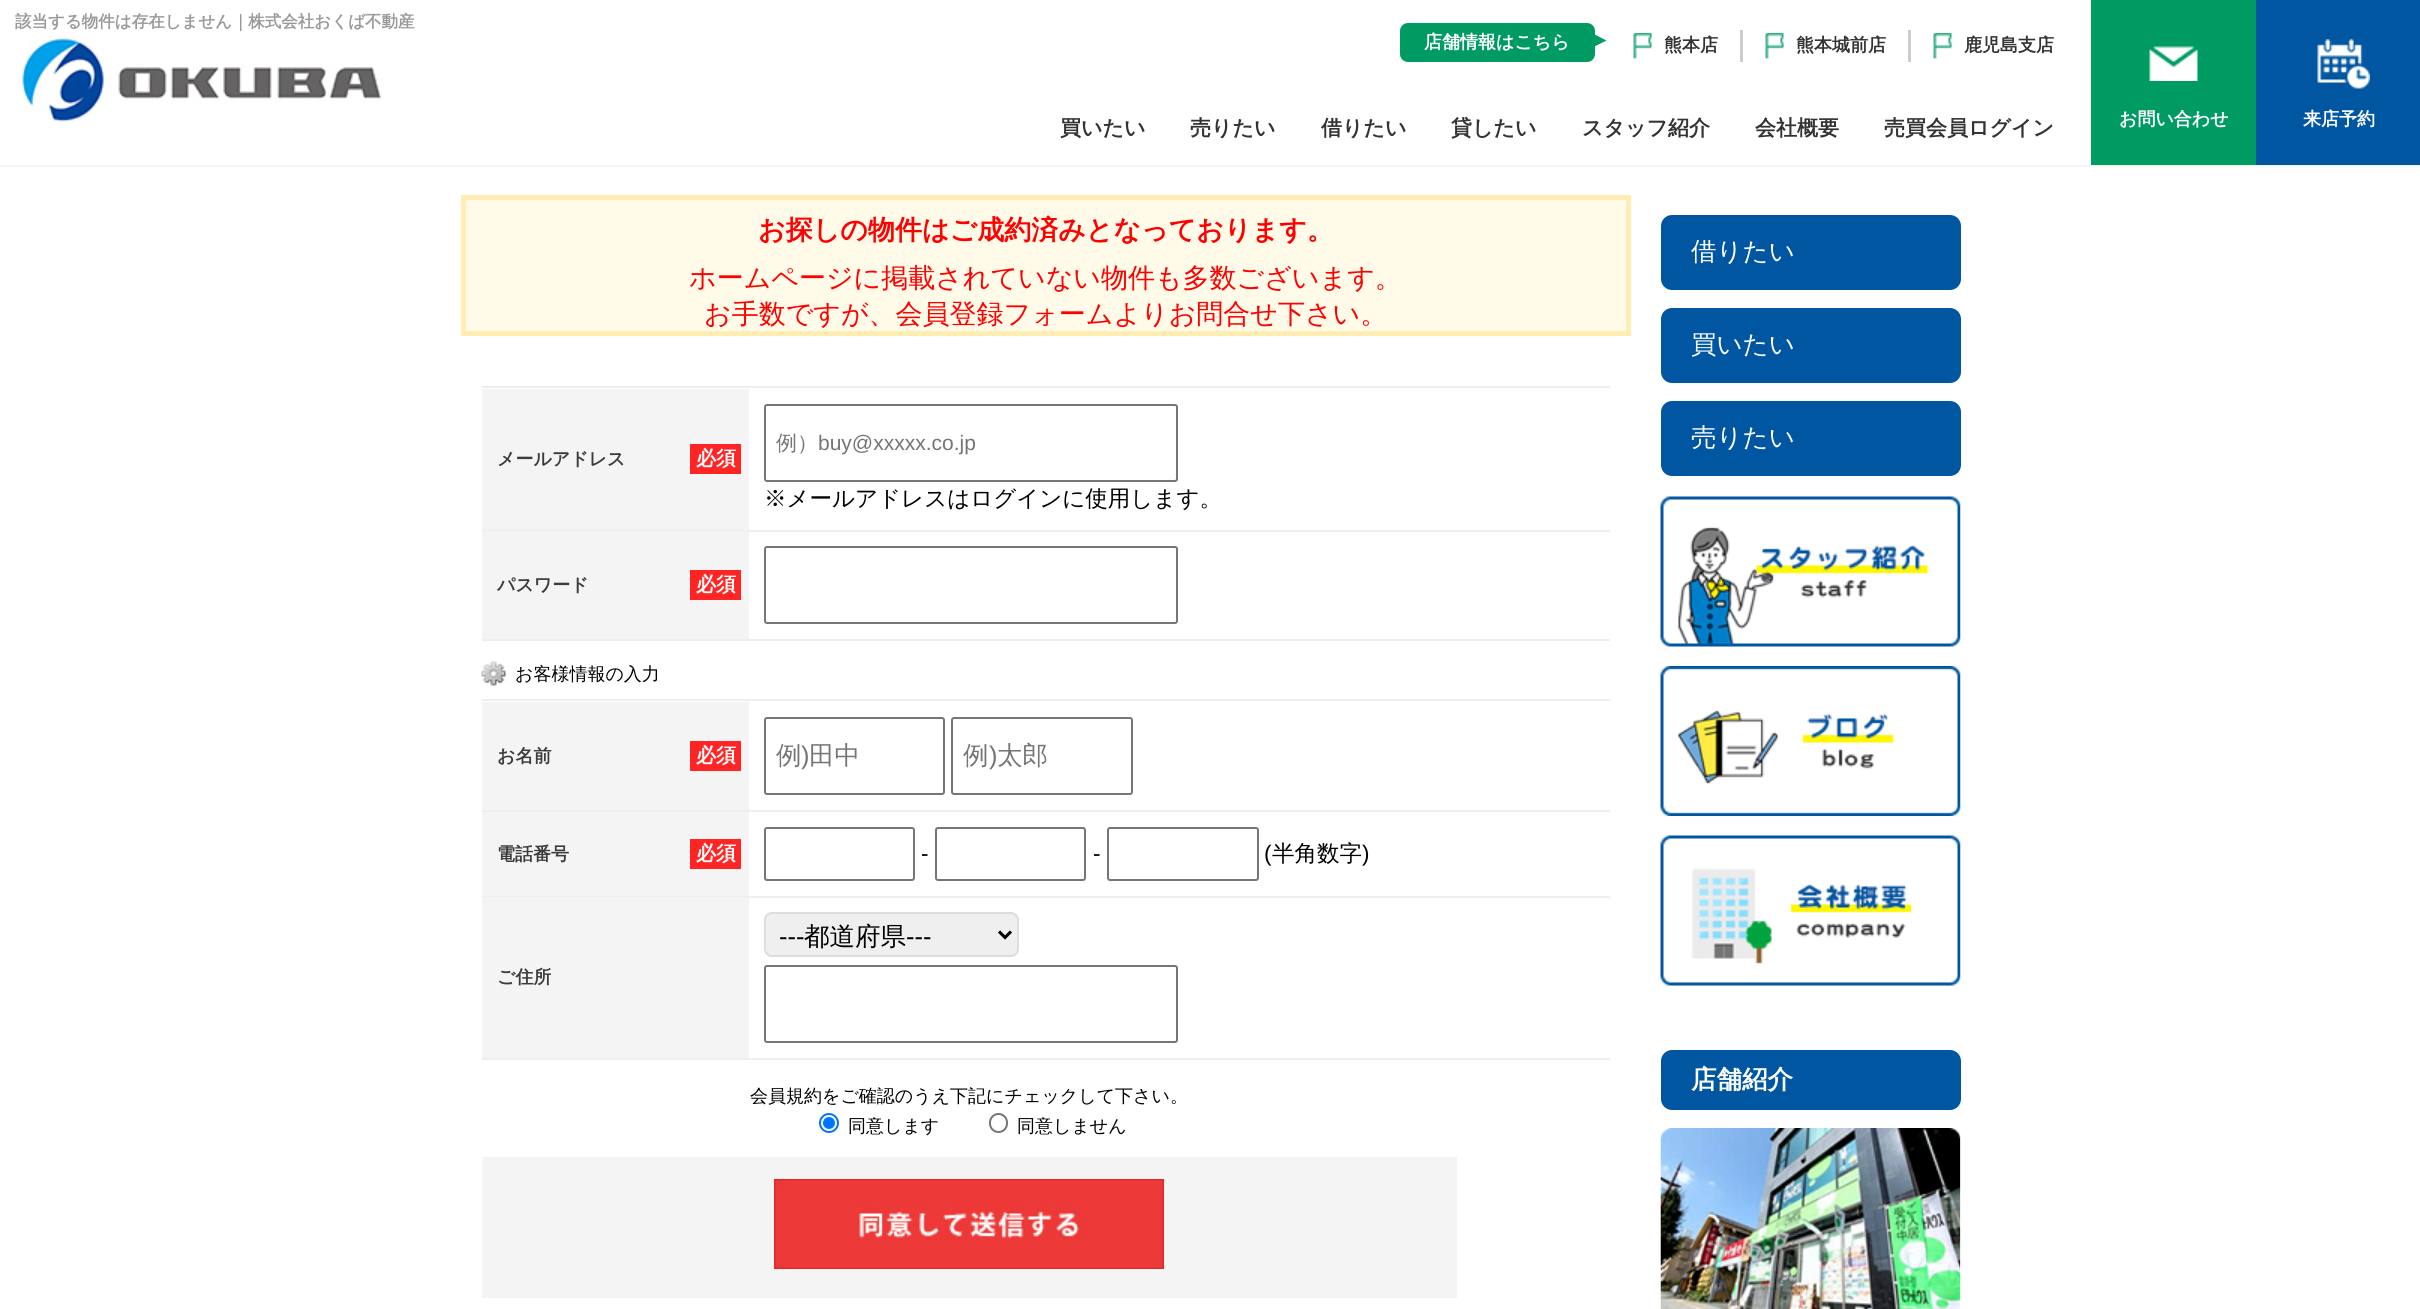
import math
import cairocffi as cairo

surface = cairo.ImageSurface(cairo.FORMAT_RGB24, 2420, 1309)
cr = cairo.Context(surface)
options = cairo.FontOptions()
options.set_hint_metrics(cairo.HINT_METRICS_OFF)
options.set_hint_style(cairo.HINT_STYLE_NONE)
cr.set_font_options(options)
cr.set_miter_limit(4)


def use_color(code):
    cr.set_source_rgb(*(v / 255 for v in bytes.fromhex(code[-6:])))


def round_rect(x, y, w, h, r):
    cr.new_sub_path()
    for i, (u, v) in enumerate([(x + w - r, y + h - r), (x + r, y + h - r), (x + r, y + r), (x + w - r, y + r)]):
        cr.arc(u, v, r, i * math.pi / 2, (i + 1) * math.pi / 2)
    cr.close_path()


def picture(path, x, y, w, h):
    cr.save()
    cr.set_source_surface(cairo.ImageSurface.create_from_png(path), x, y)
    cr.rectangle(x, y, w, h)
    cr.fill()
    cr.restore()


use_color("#ffffff")
cr.paint()
cr.select_font_face("WenQuanYi Zen Hei", cairo.FONT_SLANT_NORMAL, cairo.FONT_WEIGHT_BOLD)
cr.set_font_size(16.5)
use_color("#9b9999")
cr.move_to(15, 27)
cr.show_text("該当する物件は存在しません｜株式会社おくば不動産")
use_color("#f5f5f5")
cr.rectangle(0, 165, 2420, 2)
cr.fill()
picture("img1.png", 22, 38, 360, 84)
use_color("#009b63")
round_rect(1400, 23, 195, 39, 8)
cr.fill()
cr.set_font_size(18)
use_color("#ffffff")
cr.move_to(1424, 48)
cr.show_text("店舗情報はこちら")
use_color("#009b63")
cr.new_path()
cr.move_to(1594.5, 46.5)
cr.line_to(1594.5, 34.5)
cr.line_to(1606.5, 40.5)
cr.close_path()
cr.fill()
picture("img2.png", 1633, 33, 19, 26)
use_color("#cccccc")
cr.rectangle(1740, 30, 3, 32)
cr.fill()
use_color("#333333")
cr.move_to(1664, 51)
cr.show_text("熊本店")
picture("img2.png", 1765, 33, 19, 26)
use_color("#cccccc")
cr.rectangle(1908, 30, 3, 32)
cr.fill()
use_color("#333333")
cr.move_to(1796, 51)
cr.show_text("熊本城前店")
picture("img2.png", 1933, 33, 19, 26)
cr.move_to(1964, 51)
cr.show_text("鹿児島支店")
cr.set_font_size(21)
cr.move_to(1060, 135)
cr.show_text("買いたい")
cr.move_to(1190, 135)
cr.show_text("売りたい")
cr.move_to(1321, 135)
cr.show_text("借りたい")
cr.move_to(1451, 135)
cr.show_text("貸したい")
cr.move_to(1582, 135)
cr.show_text("スタッフ紹介")
cr.move_to(1755, 135)
cr.show_text("会社概要")
cr.move_to(1884, 135)
cr.show_text("売買会員ログイン")
use_color("#009b63")
cr.rectangle(2091, 0, 165, 165)
cr.fill()
picture("img3.png", 2149, 46, 49, 35)
cr.set_font_size(18)
use_color("#ffffff")
cr.move_to(2119, 125)
cr.show_text("お問い合わせ")
use_color("#0056a1")
cr.rectangle(2256, 0, 164, 165)
cr.fill()
picture("img4.png", 2317, 39, 53, 50)
use_color("#ffffff")
cr.move_to(2303, 125)
cr.show_text("来店予約")
use_color("#fffbe8")
cr.rectangle(463.5, 197.5, 1165, 136)
cr.fill_preserve()
use_color("#ffedb2")
cr.set_line_width(5)
cr.stroke()
cr.set_font_size(27)
use_color("#ff0000")
cr.move_to(758, 239)
cr.show_text("お探しの物件はご成約済みとなっております。")
cr.select_font_face("WenQuanYi Zen Hei Medium")
cr.move_to(689, 287)
cr.show_text("ホームページに掲載されていない物件も多数ございます。")
cr.move_to(704, 323)
cr.show_text("お手数ですが、会員登録フォームよりお問合せ下さい。")
use_color("#eeeeee")
cr.rectangle(482, 386, 1128, 2)
cr.fill()
use_color("#f4f4f4")
cr.rectangle(482, 389, 267, 141)
cr.fill()
use_color("#eeeeee")
cr.rectangle(482, 530, 267, 1)
cr.fill()
cr.select_font_face("WenQuanYi Zen Hei", cairo.FONT_SLANT_NORMAL, cairo.FONT_WEIGHT_BOLD)
cr.set_font_size(18)
use_color("#3c3c3c")
cr.move_to(497, 465)
cr.show_text("メールアドレス")
use_color("#ff2524")
cr.rectangle(690, 444, 51, 30)
cr.fill()
cr.set_font_size(20)
use_color("#ffffff")
cr.move_to(696, 465)
cr.show_text("必須")
use_color("#eeeeee")
cr.rectangle(749, 530, 861, 2)
cr.fill()
round_rect(765, 405, 412, 76, 2)
use_color("#767676")
cr.set_line_width(2)
cr.stroke()
cr.select_font_face("WenQuanYi Zen Hei Medium")
cr.set_font_size(21)
use_color("#757575")
cr.move_to(776, 450)
cr.show_text("例）")
cr.select_font_face("Liberation Sans")
cr.move_to(818, 450)
cr.show_text("buy@xxxxx.co.jp")
cr.select_font_face("WenQuanYi Zen Hei Medium")
cr.set_font_size(22.5)
use_color("#000000")
cr.move_to(764, 506)
cr.show_text("※メールアドレスはログインに使用します。")
use_color("#f4f4f4")
cr.rectangle(482, 531, 267, 108)
cr.fill()
use_color("#eeeeee")
cr.rectangle(482, 639, 1128, 2)
cr.fill()
cr.select_font_face("WenQuanYi Zen Hei", cairo.FONT_SLANT_NORMAL, cairo.FONT_WEIGHT_BOLD)
cr.set_font_size(18)
use_color("#3c3c3c")
cr.move_to(497, 591)
cr.show_text("パスワード")
use_color("#ff2524")
cr.rectangle(690, 570, 51, 30)
cr.fill()
cr.set_font_size(20)
use_color("#ffffff")
cr.move_to(696, 591)
cr.show_text("必須")
round_rect(765, 547, 412, 76, 2)
use_color("#767676")
cr.stroke()
picture("img5.png", 481, 661, 25, 25)
cr.select_font_face("WenQuanYi Zen Hei Medium")
cr.set_font_size(18)
use_color("#000000")
cr.move_to(515, 680)
cr.show_text("お客様情報の入力")
use_color("#eeeeee")
cr.rectangle(482, 699, 1128, 2)
cr.fill()
use_color("#f4f4f4")
cr.rectangle(482, 702, 267, 108)
cr.fill()
use_color("#eeeeee")
cr.rectangle(482, 810, 1128, 2)
cr.fill()
cr.select_font_face("WenQuanYi Zen Hei", cairo.FONT_SLANT_NORMAL, cairo.FONT_WEIGHT_BOLD)
use_color("#3c3c3c")
cr.move_to(497, 762)
cr.show_text("お名前")
use_color("#ff2524")
cr.rectangle(690, 741, 51, 30)
cr.fill()
cr.set_font_size(20)
use_color("#ffffff")
cr.move_to(696, 762)
cr.show_text("必須")
round_rect(765, 718, 179, 76, 2)
use_color("#767676")
cr.stroke()
cr.select_font_face("WenQuanYi Zen Hei Medium")
cr.set_font_size(25.5)
use_color("#757575")
cr.move_to(776, 764)
cr.show_text("例")
cr.select_font_face("Liberation Sans")
cr.move_to(801, 764)
cr.show_text(")")
cr.select_font_face("WenQuanYi Zen Hei Medium")
cr.move_to(809, 764)
cr.show_text("田中")
round_rect(952, 718, 180, 76, 2)
use_color("#767676")
cr.stroke()
use_color("#757575")
cr.move_to(963, 764)
cr.show_text("例")
cr.select_font_face("Liberation Sans")
cr.move_to(989, 764)
cr.show_text(")")
cr.select_font_face("WenQuanYi Zen Hei Medium")
cr.move_to(997, 764)
cr.show_text("太郎")
use_color("#f4f4f4")
cr.rectangle(482, 812, 267, 84)
cr.fill()
use_color("#eeeeee")
cr.rectangle(482, 896, 267, 1)
cr.fill()
cr.select_font_face("WenQuanYi Zen Hei", cairo.FONT_SLANT_NORMAL, cairo.FONT_WEIGHT_BOLD)
cr.set_font_size(18)
use_color("#3c3c3c")
cr.move_to(497, 860)
cr.show_text("電話番号")
use_color("#ff2524")
cr.rectangle(690, 839, 51, 30)
cr.fill()
cr.set_font_size(20)
use_color("#ffffff")
cr.move_to(696, 860)
cr.show_text("必須")
use_color("#eeeeee")
cr.rectangle(749, 896, 861, 2)
cr.fill()
round_rect(765, 828, 149, 52, 2)
use_color("#767676")
cr.stroke()
cr.select_font_face("Liberation Sans")
cr.set_font_size(22.5)
use_color("#000000")
cr.move_to(921, 861)
cr.show_text("-")
round_rect(936, 828, 149, 52, 2)
use_color("#767676")
cr.stroke()
use_color("#000000")
cr.move_to(1093, 861)
cr.show_text("-")
round_rect(1108, 828, 150, 52, 2)
use_color("#767676")
cr.stroke()
use_color("#000000")
cr.move_to(1264, 861)
cr.show_text("(")
cr.select_font_face("WenQuanYi Zen Hei Medium")
cr.move_to(1272, 861)
cr.show_text("半角数字")
cr.select_font_face("Liberation Sans")
cr.move_to(1362, 861)
cr.show_text(")")
use_color("#efefef")
round_rect(765, 913, 253, 43, 7)
cr.fill_preserve()
use_color("#dddddd")
cr.stroke()
cr.new_path()
cr.move_to(999, 931.5)
cr.line_to(1005, 937.5)
cr.line_to(1011, 931.5)
use_color("#000000")
cr.set_line_width(3)
cr.stroke()
cr.set_font_size(25.5)
cr.move_to(779, 945)
cr.show_text("---")
cr.select_font_face("WenQuanYi Zen Hei Medium")
cr.move_to(804, 945)
cr.show_text("都道府県")
cr.select_font_face("Liberation Sans")
cr.move_to(906, 945)
cr.show_text("---")
round_rect(765, 966, 412, 76, 2)
use_color("#767676")
cr.set_line_width(2)
cr.stroke()
use_color("#f4f4f4")
cr.rectangle(482, 897, 267, 161)
cr.fill()
use_color("#eeeeee")
cr.rectangle(482, 1058, 1128, 2)
cr.fill()
cr.select_font_face("WenQuanYi Zen Hei", cairo.FONT_SLANT_NORMAL, cairo.FONT_WEIGHT_BOLD)
cr.set_font_size(18)
use_color("#3c3c3c")
cr.move_to(497, 983)
cr.show_text("ご住所")
cr.select_font_face("WenQuanYi Zen Hei Medium")
use_color("#000000")
cr.move_to(750, 1102)
cr.show_text("会員規約をご確認のうえ下記にチェックして下さい。")
cr.new_path()
cr.arc(829, 1123, 9, 0, 2 * math.pi)
use_color("#0075ff")
cr.stroke()
cr.arc(829, 1123, 6, 0, 2 * math.pi)
cr.fill()
use_color("#000000")
cr.move_to(848, 1132)
cr.show_text("同意します")
round_rect(990, 1114, 17, 18, 8.5)
use_color("#767676")
cr.stroke()
use_color("#000000")
cr.move_to(1017, 1132)
cr.show_text("同意しません")
use_color("#f4f4f4")
cr.rectangle(482, 1157, 975, 141)
cr.fill()
picture("img6.png", 774, 1179, 390, 90)
use_color("#0056a1")
round_rect(1661, 215, 300, 75, 11)
cr.fill()
cr.set_font_size(25.5)
use_color("#ffffff")
cr.move_to(1691, 260)
cr.show_text("借りたい")
use_color("#0056a1")
round_rect(1661, 308, 300, 75, 11)
cr.fill()
use_color("#ffffff")
cr.move_to(1691, 353)
cr.show_text("買いたい")
use_color("#0056a1")
round_rect(1661, 401, 300, 75, 11)
cr.fill()
use_color("#ffffff")
cr.move_to(1691, 446)
cr.show_text("売りたい")
picture("img7.png", 1660, 496, 301, 151)
picture("img8.png", 1660, 666, 301, 150)
picture("img9.png", 1660, 835, 301, 151)
use_color("#0056a1")
round_rect(1661, 1050, 300, 60, 11)
cr.fill()
cr.select_font_face("WenQuanYi Zen Hei", cairo.FONT_SLANT_NORMAL, cairo.FONT_WEIGHT_BOLD)
use_color("#ffffff")
cr.move_to(1691, 1088)
cr.show_text("店舗紹介")
picture("img10.png", 1660, 1128, 301, 181)
surface.write_to_png("result.png")
